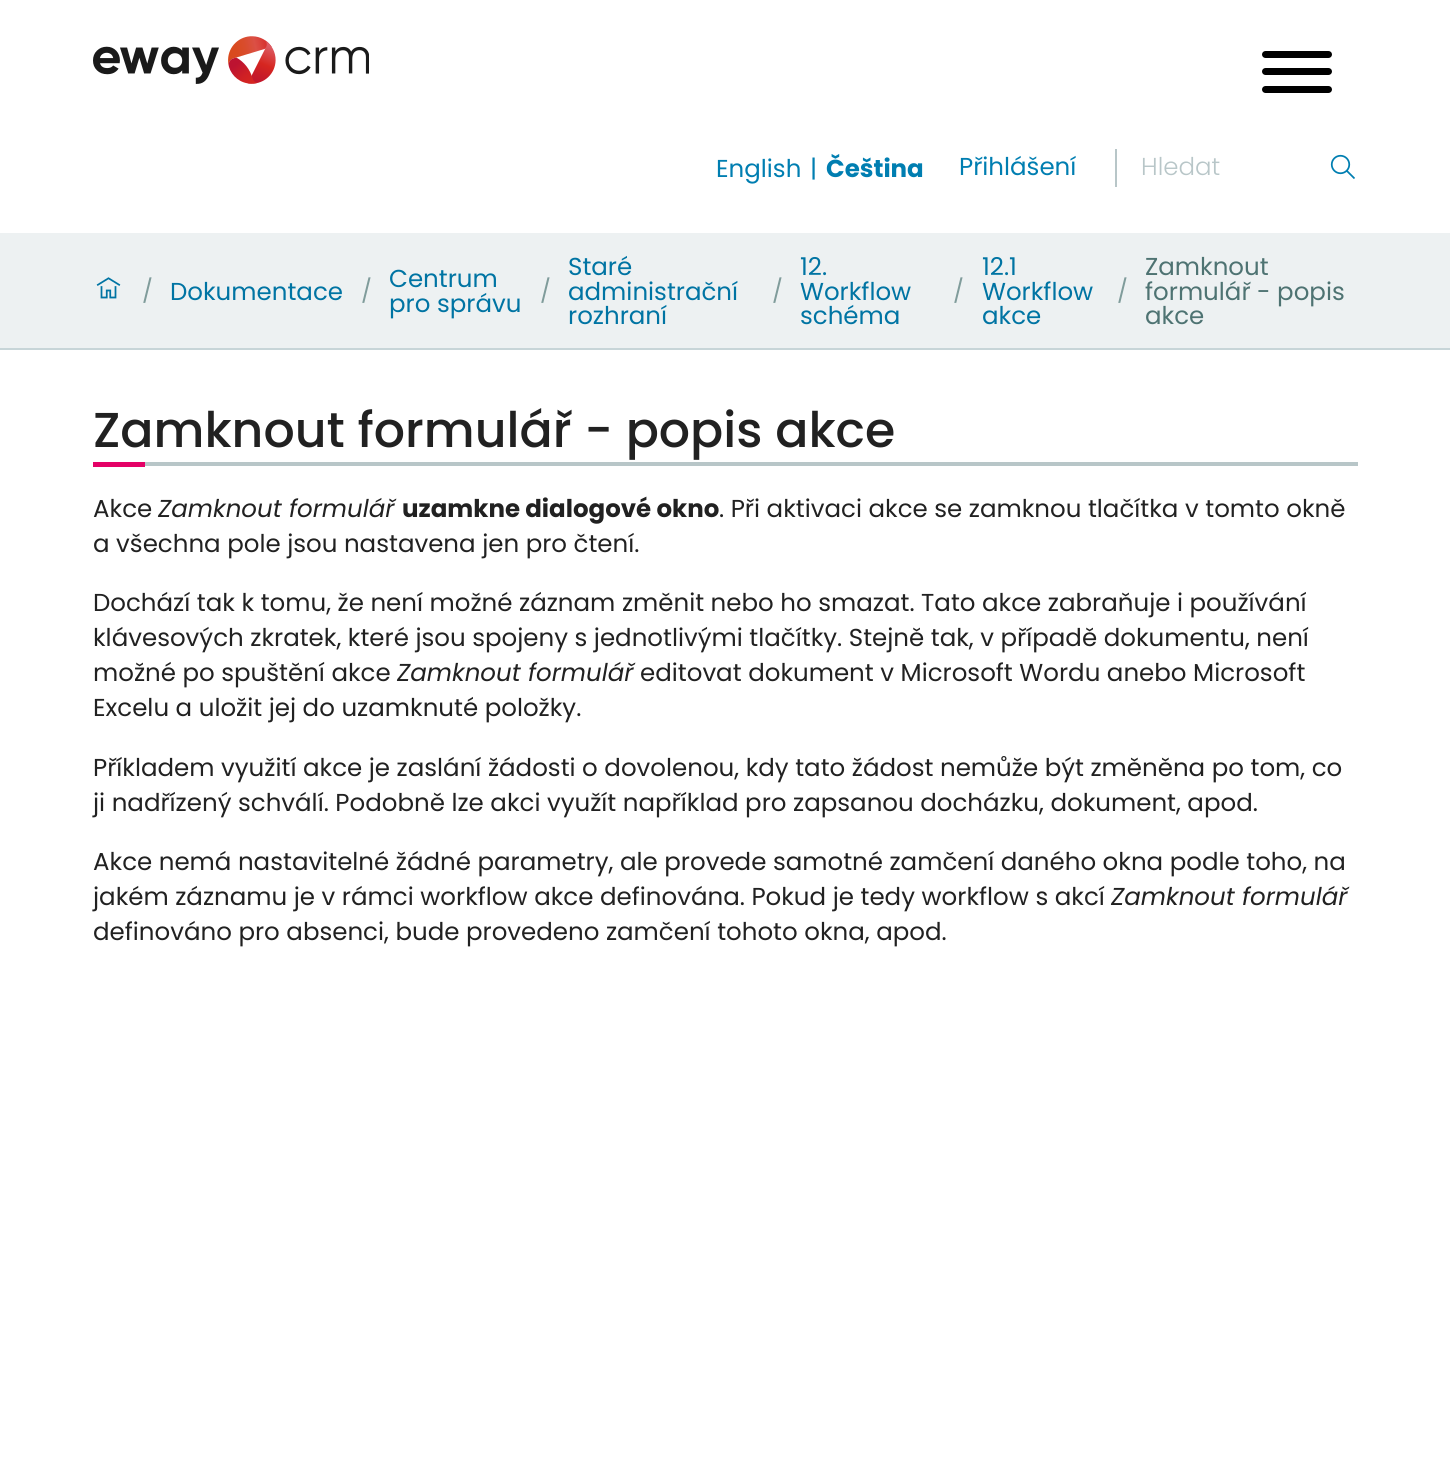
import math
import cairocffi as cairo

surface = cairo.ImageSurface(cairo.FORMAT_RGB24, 1450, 1482)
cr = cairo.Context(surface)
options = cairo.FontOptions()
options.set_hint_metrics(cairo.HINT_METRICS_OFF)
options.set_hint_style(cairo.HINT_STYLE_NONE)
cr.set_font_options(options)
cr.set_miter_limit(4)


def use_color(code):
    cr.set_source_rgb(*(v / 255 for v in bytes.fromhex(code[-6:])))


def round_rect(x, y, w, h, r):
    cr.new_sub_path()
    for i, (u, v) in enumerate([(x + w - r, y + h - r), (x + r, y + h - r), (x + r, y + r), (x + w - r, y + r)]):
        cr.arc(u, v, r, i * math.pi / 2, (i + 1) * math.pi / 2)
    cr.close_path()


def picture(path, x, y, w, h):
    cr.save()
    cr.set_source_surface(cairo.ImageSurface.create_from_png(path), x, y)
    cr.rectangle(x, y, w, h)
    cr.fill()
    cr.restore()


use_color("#ffffff")
cr.paint()
picture("img1.png", 93, 36, 276, 48)
use_color("#000000")
round_rect(1262, 68, 70, 7, 3.5)
cr.fill()
round_rect(1262, 51, 70, 7, 3.5)
cr.fill()
round_rect(1262, 86, 70, 7, 3.5)
cr.fill()
cr.select_font_face("Poppins")
cr.set_font_size(24.5)
use_color("#007eb1")
cr.move_to(716, 177)
cr.show_text("English")
cr.move_to(810, 177)
cr.show_text("|")
cr.select_font_face("Poppins", cairo.FONT_SLANT_NORMAL, cairo.FONT_WEIGHT_BOLD)
cr.move_to(826, 177)
cr.show_text("Čeština")
cr.select_font_face("Poppins")
cr.move_to(959, 175)
cr.show_text("Přihlášení")
use_color("#b8c6c8")
cr.rectangle(1115, 149, 2, 38)
cr.fill()
cr.select_font_face("Poppins Light")
cr.move_to(1141, 175)
cr.show_text("Hledat")
picture("img2.png", 1330, 154, 25, 25)
use_color("#edf1f2")
cr.rectangle(0, 233, 1450, 115)
cr.fill()
use_color("#c7d5d8")
cr.rectangle(0, 348, 1450, 2)
cr.fill()
picture("img3.png", 96, 277, 25, 22)
cr.select_font_face("Poppins")
cr.set_font_size(23)
use_color("#809c9b")
cr.move_to(142, 299)
cr.show_text("/")
cr.set_font_size(24.5)
use_color("#0074a3")
cr.move_to(170, 300)
cr.show_text("Dokumentace")
cr.set_font_size(23)
use_color("#809c9b")
cr.move_to(361, 299)
cr.show_text("/")
cr.set_font_size(24.5)
use_color("#0074a3")
cr.move_to(389, 287)
cr.show_text("Centrum")
cr.move_to(389, 312)
cr.show_text("pro správu")
cr.set_font_size(23)
use_color("#809c9b")
cr.move_to(540, 299)
cr.show_text("/")
cr.set_font_size(24.5)
use_color("#0074a3")
cr.move_to(568, 275)
cr.show_text("Staré")
cr.move_to(568, 300)
cr.show_text("administrační")
cr.move_to(568, 324)
cr.show_text("rozhraní")
cr.set_font_size(23)
use_color("#809c9b")
cr.move_to(772, 299)
cr.show_text("/")
cr.set_font_size(24.5)
use_color("#0074a3")
cr.move_to(800, 275)
cr.show_text("12.")
cr.move_to(800, 300)
cr.show_text("Workflow")
cr.move_to(800, 324)
cr.show_text("schéma")
cr.set_font_size(23)
use_color("#809c9b")
cr.move_to(953, 299)
cr.show_text("/")
cr.set_font_size(24.5)
use_color("#0074a3")
cr.move_to(982, 275)
cr.show_text("12.1")
cr.move_to(982, 300)
cr.show_text("Workflow")
cr.move_to(982, 324)
cr.show_text("akce")
cr.set_font_size(23)
use_color("#809c9b")
cr.move_to(1117, 299)
cr.show_text("/")
cr.set_font_size(24.5)
use_color("#4e7372")
cr.move_to(1145, 275)
cr.show_text("Zamknout")
cr.move_to(1145, 300)
cr.show_text("formulář - popis")
cr.move_to(1145, 324)
cr.show_text("akce")
use_color("#b8c6c8")
cr.rectangle(145, 462, 1213, 4)
cr.fill()
cr.select_font_face("Poppins Medium")
cr.set_font_size(49)
use_color("#212121")
cr.move_to(93, 447)
cr.show_text("Zamknout formulář - popis akce")
use_color("#e40166")
cr.rectangle(93, 462, 52, 5)
cr.fill()
cr.select_font_face("Poppins")
cr.set_font_size(24.5)
use_color("#212121")
cr.move_to(93, 517)
cr.show_text("Akce")
cr.select_font_face("Poppins", cairo.FONT_SLANT_ITALIC)
cr.move_to(158, 517)
cr.show_text("Zamknout formulář")
cr.select_font_face("Poppins", cairo.FONT_SLANT_NORMAL, cairo.FONT_WEIGHT_BOLD)
cr.move_to(402, 517)
cr.show_text("uzamkne dialogové okno")
cr.select_font_face("Poppins")
cr.move_to(719, 517)
cr.show_text(". Při aktivaci akce se zamknou tlačítka v tomto okně")
cr.move_to(93, 552)
cr.show_text("a všechna pole jsou nastavena jen pro čtení.")
cr.move_to(93, 611)
cr.show_text("Dochází tak k tomu, že není možné záznam změnit nebo ho smazat. Tato akce zabraňuje i používání")
cr.move_to(93, 646)
cr.show_text("klávesových zkratek, které jsou spojeny s jednotlivými tlačítky. Stejně tak, v případě dokumentu, není")
cr.move_to(93, 681)
cr.show_text("možné po spuštění akce")
cr.select_font_face("Poppins", cairo.FONT_SLANT_ITALIC)
cr.move_to(397, 681)
cr.show_text("Zamknout formulář")
cr.select_font_face("Poppins")
cr.move_to(640, 681)
cr.show_text("editovat dokument v Microsoft Wordu anebo Microsoft")
cr.move_to(93, 716)
cr.show_text("Excelu a uložit jej do uzamknuté položky.")
cr.move_to(93, 776)
cr.show_text("Příkladem využití akce je zaslání žádosti o dovolenou, kdy tato žádost nemůže být změněna po tom, co")
cr.move_to(93, 811)
cr.show_text("ji nadřízený schválí. Podobně lze akci využít například pro zapsanou docházku, dokument, apod.")
cr.move_to(93, 870)
cr.show_text("Akce nemá nastavitelné žádné parametry, ale provede samotné zamčení daného okna podle toho, na")
cr.move_to(93, 905)
cr.show_text("jakém záznamu je v rámci workflow akce definována. Pokud je tedy workflow s akcí")
cr.select_font_face("Poppins", cairo.FONT_SLANT_ITALIC)
cr.move_to(1111, 905)
cr.show_text("Zamknout formulář")
cr.select_font_face("Poppins")
cr.move_to(93, 940)
cr.show_text("definováno pro absenci, bude provedeno zamčení tohoto okna, apod.")
surface.write_to_png("result.png")
